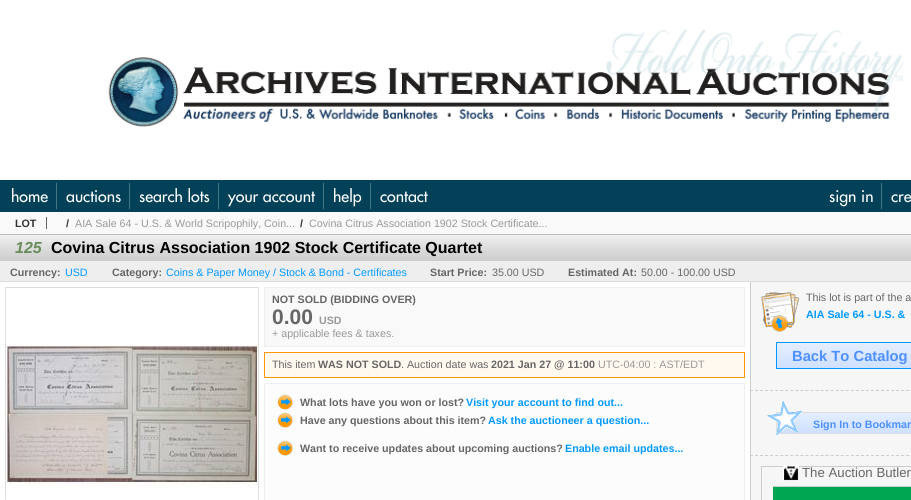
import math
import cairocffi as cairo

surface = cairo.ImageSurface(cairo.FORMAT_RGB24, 911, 500)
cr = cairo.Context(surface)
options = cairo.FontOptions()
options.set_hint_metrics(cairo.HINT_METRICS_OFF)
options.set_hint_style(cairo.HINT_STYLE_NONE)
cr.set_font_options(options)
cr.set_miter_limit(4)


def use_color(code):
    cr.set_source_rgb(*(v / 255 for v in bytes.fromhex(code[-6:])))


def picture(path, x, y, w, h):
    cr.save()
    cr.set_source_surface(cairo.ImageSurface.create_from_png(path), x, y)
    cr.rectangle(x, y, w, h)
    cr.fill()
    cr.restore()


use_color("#ffffff")
cr.paint()
picture("img1.png", 108, 29, 796, 98)
use_color("#034158")
cr.rectangle(0, 180, 911, 32)
cr.fill()
cr.select_font_face("Futura Medium")
cr.set_font_size(16)
use_color("#ffffff")
cr.move_to(11, 202)
cr.show_text("home")
use_color("#477785")
cr.rectangle(56, 183, 1, 26)
cr.fill()
use_color("#ffffff")
cr.move_to(66, 202)
cr.show_text("auctions")
use_color("#477785")
cr.rectangle(129, 183, 1, 26)
cr.fill()
use_color("#ffffff")
cr.move_to(139, 202)
cr.show_text("search lots")
use_color("#477785")
cr.rectangle(218, 183, 1, 26)
cr.fill()
use_color("#ffffff")
cr.move_to(228, 202)
cr.show_text("your account")
use_color("#477785")
cr.rectangle(323, 183, 1, 26)
cr.fill()
use_color("#ffffff")
cr.move_to(333, 202)
cr.show_text("help")
use_color("#477785")
cr.rectangle(370, 183, 1, 26)
cr.fill()
use_color("#ffffff")
cr.move_to(380, 202)
cr.show_text("contact")
cr.move_to(829, 202)
cr.show_text("sign in")
use_color("#477785")
cr.rectangle(881, 183, 1, 26)
cr.fill()
use_color("#ffffff")
cr.move_to(891, 202)
cr.show_text("cre")
use_color("#f9f9f9")
cr.rectangle(0, 212, 911, 22)
cr.fill()
use_color("#bbbbbb")
cr.rectangle(0, 234, 911, 1)
cr.fill()
cr.select_font_face("Liberation Sans", cairo.FONT_SLANT_NORMAL, cairo.FONT_WEIGHT_BOLD)
cr.set_font_size(10.7)
use_color("#333333")
cr.move_to(15, 227)
cr.show_text("LOT")
use_color("#666666")
cr.rectangle(46, 217, 1, 12)
cr.fill()
use_color("#333333")
cr.move_to(66, 227)
cr.show_text("/")
cr.select_font_face("Liberation Sans")
use_color("#999999")
cr.move_to(75, 227)
cr.show_text("AIA Sale 64 - U.S. & World Scripophily, Coin...")
cr.select_font_face("Liberation Sans", cairo.FONT_SLANT_NORMAL, cairo.FONT_WEIGHT_BOLD)
use_color("#333333")
cr.move_to(300, 227)
cr.show_text("/")
cr.select_font_face("Liberation Sans")
use_color("#999999")
cr.move_to(309, 227)
cr.show_text("Covina Citrus Association 1902 Stock Certificate...")
picture("img2.png", 0, 235, 911, 26)
cr.select_font_face("Liberation Sans", cairo.FONT_SLANT_ITALIC, cairo.FONT_WEIGHT_BOLD)
cr.set_font_size(16)
use_color("#698c5b")
cr.move_to(15, 253)
cr.show_text("125")
cr.select_font_face("Liberation Sans", cairo.FONT_SLANT_NORMAL, cairo.FONT_WEIGHT_BOLD)
use_color("#000000")
cr.move_to(51, 253)
cr.show_text("Covina Citrus Association 1902 Stock Certificate Quartet")
use_color("#eeeeee")
cr.rectangle(0, 261, 911, 20)
cr.fill()
use_color("#dddddd")
cr.rectangle(0, 281, 911, 1)
cr.fill()
cr.set_font_size(10.7)
use_color("#666666")
cr.move_to(10, 276)
cr.show_text("Currency:")
cr.select_font_face("Liberation Sans")
use_color("#0099ff")
cr.move_to(65, 276)
cr.show_text("USD")
cr.select_font_face("Liberation Sans", cairo.FONT_SLANT_NORMAL, cairo.FONT_WEIGHT_BOLD)
use_color("#666666")
cr.move_to(112, 276)
cr.show_text("Category:")
cr.select_font_face("Liberation Sans")
use_color("#0099ff")
cr.move_to(166, 276)
cr.show_text("Coins & Paper Money / Stock & Bond - Certificates")
cr.select_font_face("Liberation Sans", cairo.FONT_SLANT_NORMAL, cairo.FONT_WEIGHT_BOLD)
use_color("#666666")
cr.move_to(430, 276)
cr.show_text("Start Price:")
cr.select_font_face("Liberation Sans")
cr.move_to(492, 276)
cr.show_text("35.00 USD")
cr.select_font_face("Liberation Sans", cairo.FONT_SLANT_NORMAL, cairo.FONT_WEIGHT_BOLD)
cr.move_to(568, 276)
cr.show_text("Estimated At:")
cr.select_font_face("Liberation Sans")
cr.move_to(641, 276)
cr.show_text("50.00 - 100.00 USD")
use_color("#dddddd")
cr.rectangle(5, 287, 254, 1)
cr.fill()
cr.rectangle(258, 287, 1, 213)
cr.fill()
cr.rectangle(5, 287, 1, 213)
cr.fill()
picture("img3.png", 7, 345, 250, 144)
use_color("#f9f9f9")
cr.rectangle(264.5, 287.5, 480, 59)
cr.fill_preserve()
use_color("#eeeeee")
cr.set_line_width(1)
cr.stroke()
cr.select_font_face("Liberation Sans", cairo.FONT_SLANT_NORMAL, cairo.FONT_WEIGHT_BOLD)
use_color("#666666")
cr.move_to(272, 303)
cr.show_text("NOT SOLD (BIDDING OVER)")
cr.set_font_size(21)
cr.move_to(272, 324)
cr.show_text("0.00")
cr.set_font_size(10.7)
use_color("#999999")
cr.move_to(319, 324)
cr.show_text("USD")
cr.select_font_face("Liberation Sans")
cr.move_to(272, 337)
cr.show_text("+ applicable fees & taxes.")
use_color("#fff9f0")
cr.rectangle(264.5, 352.5, 480, 25)
cr.fill_preserve()
use_color("#ff9900")
cr.stroke()
use_color("#666666")
cr.move_to(272, 368)
cr.show_text("This item")
cr.select_font_face("Liberation Sans", cairo.FONT_SLANT_NORMAL, cairo.FONT_WEIGHT_BOLD)
cr.move_to(318, 368)
cr.show_text("WAS NOT SOLD")
cr.select_font_face("Liberation Sans")
cr.move_to(401, 368)
cr.show_text(". Auction date was")
cr.select_font_face("Liberation Sans", cairo.FONT_SLANT_NORMAL, cairo.FONT_WEIGHT_BOLD)
cr.move_to(491, 368)
cr.show_text("2021 Jan 27 @ 11:00")
cr.select_font_face("Liberation Sans")
use_color("#999999")
cr.move_to(598, 368)
cr.show_text("UTC-04:00 : AST/EDT")
use_color("#fcfcfc")
cr.rectangle(264.5, 383.5, 480, 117)
cr.fill_preserve()
use_color("#eeeeee")
cr.stroke()
picture("img4.png", 277, 394, 16, 16)
cr.select_font_face("Liberation Sans", cairo.FONT_SLANT_NORMAL, cairo.FONT_WEIGHT_BOLD)
use_color("#666666")
cr.move_to(300, 406)
cr.show_text("What lots have you won or lost?")
use_color("#0099ff")
cr.move_to(466, 406)
cr.show_text("Visit your account to find out...")
picture("img4.png", 277, 412, 16, 16)
use_color("#666666")
cr.move_to(300, 424)
cr.show_text("Have any questions about this item?")
use_color("#0099ff")
cr.move_to(488, 424)
cr.show_text("Ask the auctioneer a question...")
picture("img4.png", 277, 440, 16, 16)
use_color("#666666")
cr.move_to(300, 452)
cr.show_text("Want to receive updates about upcoming auctions?")
use_color("#0099ff")
cr.move_to(565, 452)
cr.show_text("Enable email updates...")
use_color("#f6f6f6")
cr.rectangle(751, 282, 160, 218)
cr.fill()
cr.new_path()
cr.move_to(750, 390.5)
cr.line_to(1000, 390.5)
use_color("#cccccc")
cr.set_dash([3, 2.04])
cr.stroke()
cr.rectangle(750, 282, 1, 109)
cr.fill()
picture("img5.png", 761, 292, 38, 41)
cr.select_font_face("Liberation Sans")
use_color("#666666")
cr.move_to(806, 301)
cr.show_text("This lot is part of the a")
cr.select_font_face("Liberation Sans", cairo.FONT_SLANT_NORMAL, cairo.FONT_WEIGHT_BOLD)
use_color("#0099ff")
cr.move_to(806, 318)
cr.show_text("AIA Sale 64 - U.S. &")
gradient = cairo.LinearGradient(875, 343, 875, 368)
gradient.add_color_stop_rgba(0, 0.894, 0.933, 1, 1)
gradient.add_color_stop_rgba(1, 0.812, 0.882, 1, 1)
cr.set_source(gradient)
cr.rectangle(777, 343, 134, 25)
cr.fill()
cr.rectangle(776.5, 342.5, 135, 26)
use_color("#0099ff")
cr.set_dash([])
cr.stroke()
cr.set_font_size(14.75)
use_color("#4d90fe")
cr.move_to(792, 361)
cr.show_text("Back To Catalog")
cr.new_path()
cr.move_to(750, 455.5)
cr.line_to(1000, 455.5)
use_color("#cccccc")
cr.set_dash([3, 2.04])
cr.stroke()
cr.rectangle(750, 391, 1, 109)
cr.fill()
gradient = cairo.LinearGradient(875, 413, 875, 433)
gradient.add_color_stop_rgba(0, 0.894, 0.933, 1, 1)
gradient.add_color_stop_rgba(1, 0.812, 0.882, 1, 1)
cr.set_source(gradient)
cr.rectangle(777, 413, 134, 20)
cr.fill()
cr.rectangle(776.5, 412.5, 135, 21)
use_color("#dddddd")
cr.set_dash([])
cr.stroke()
picture("img6.png", 767, 400, 35, 36)
cr.set_font_size(10.7)
use_color("#4d90fe")
cr.move_to(813, 428)
cr.show_text("Sign In to Bookmar")
cr.rectangle(761.5, 466.5, 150, 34)
use_color("#cccccc")
cr.stroke()
picture("img7.png", 783, 465, 16, 16)
cr.select_font_face("Liberation Sans")
cr.set_font_size(13.25)
use_color("#666666")
cr.move_to(802, 477)
cr.show_text("The Auction Butler")
use_color("#00a651")
cr.rectangle(773, 487, 138, 13)
cr.fill()
use_color("#cccccc")
cr.rectangle(773, 486, 138, 1)
cr.fill()
surface.write_to_png("result.png")
